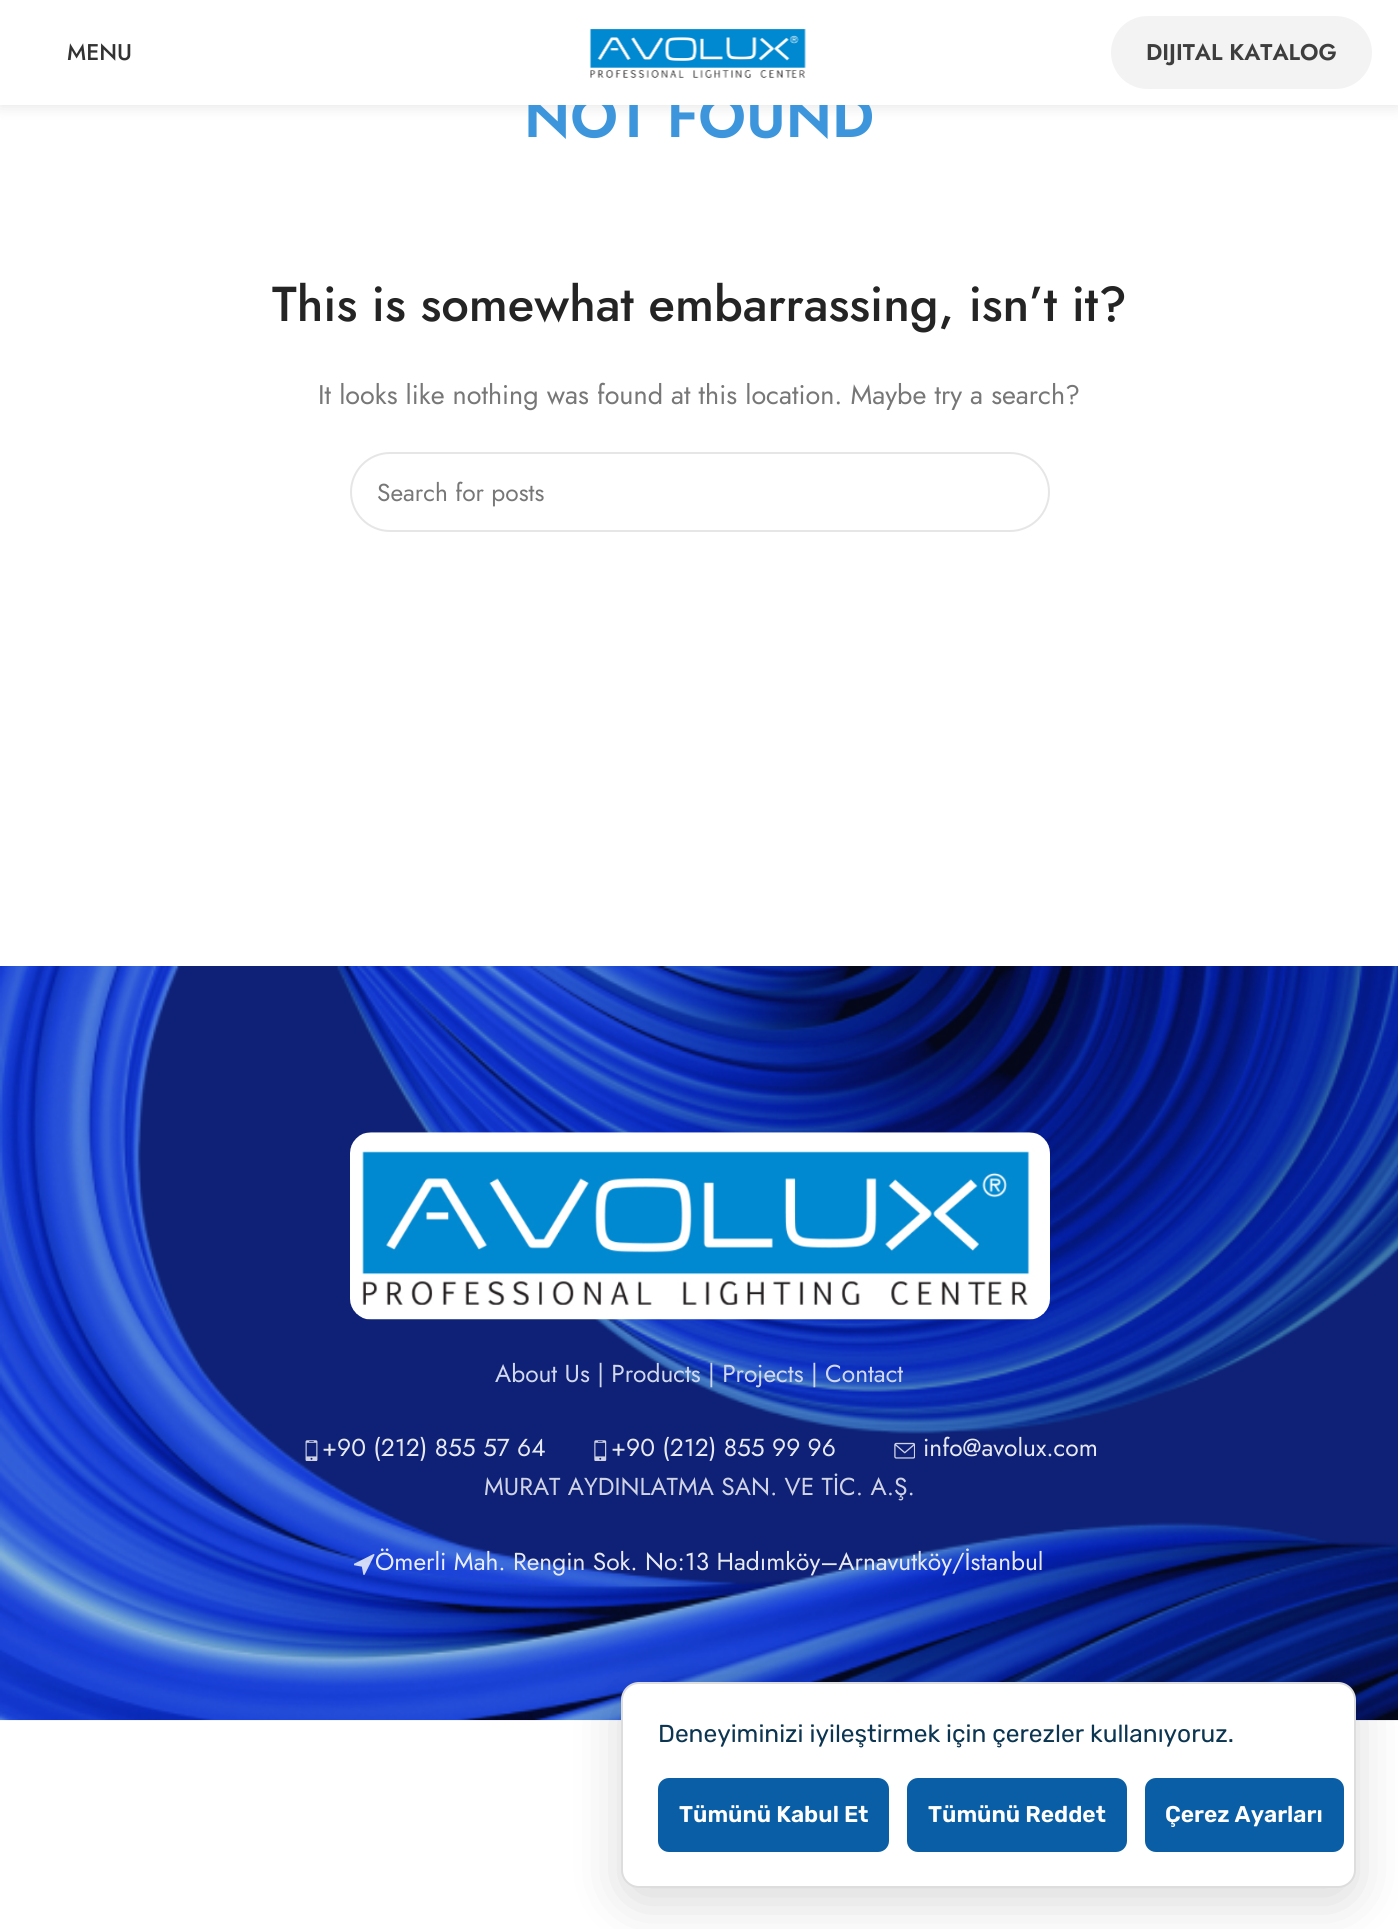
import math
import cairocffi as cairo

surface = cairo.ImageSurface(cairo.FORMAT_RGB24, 1398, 1929)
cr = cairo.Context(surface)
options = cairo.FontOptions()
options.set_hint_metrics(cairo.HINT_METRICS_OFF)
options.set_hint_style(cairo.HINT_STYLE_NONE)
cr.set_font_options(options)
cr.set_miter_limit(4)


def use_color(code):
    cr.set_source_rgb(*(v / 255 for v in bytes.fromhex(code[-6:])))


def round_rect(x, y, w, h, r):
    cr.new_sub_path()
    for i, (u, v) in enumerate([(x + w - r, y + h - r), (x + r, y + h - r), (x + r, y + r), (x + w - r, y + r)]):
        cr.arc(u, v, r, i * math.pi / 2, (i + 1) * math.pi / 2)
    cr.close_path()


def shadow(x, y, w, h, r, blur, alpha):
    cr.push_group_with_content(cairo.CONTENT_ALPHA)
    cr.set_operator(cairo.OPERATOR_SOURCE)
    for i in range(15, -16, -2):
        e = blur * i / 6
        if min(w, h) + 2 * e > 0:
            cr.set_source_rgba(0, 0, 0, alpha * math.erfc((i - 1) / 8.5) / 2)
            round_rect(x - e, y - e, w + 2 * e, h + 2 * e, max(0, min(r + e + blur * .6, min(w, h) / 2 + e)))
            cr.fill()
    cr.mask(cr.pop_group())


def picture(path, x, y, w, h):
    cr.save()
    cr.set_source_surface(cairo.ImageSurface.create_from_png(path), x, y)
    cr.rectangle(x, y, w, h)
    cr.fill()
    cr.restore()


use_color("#ffffff")
cr.paint()
use_color("#000000")
shadow(0, 2, 1398, 105, 0, 7, 0.1)
cr.select_font_face("Jost SemiBold")
cr.set_font_size(58.75)
use_color("#3d96db")
cr.move_to(524, 137)
cr.show_text("NOT FOUND")
use_color("#ffffff")
cr.rectangle(0, 0, 1398, 105)
cr.fill()
cr.select_font_face("Jost Medium")
cr.set_font_size(22.75)
use_color("#333333")
cr.move_to(67, 60)
cr.show_text("MENU")
picture("img1.png", 589, 29, 217, 49)
use_color("#f3f3f3")
round_rect(1111, 16, 261, 73, 36.5)
cr.fill()
cr.select_font_face("Jost SemiBold")
use_color("#3e3e3e")
cr.move_to(1146, 60)
cr.show_text("DIJITAL KATALOG")
cr.select_font_face("Jost Medium")
cr.set_font_size(49)
use_color("#242424")
cr.move_to(272, 321)
cr.show_text("This is somewhat embarrassing, isn’t it?")
cr.select_font_face("Jost")
cr.set_font_size(26.95)
use_color("#777777")
cr.move_to(318, 404)
cr.show_text("It looks like nothing was found at this location. Maybe try a search?")
round_rect(351, 453, 698, 78, 39)
use_color("#e6e6e6")
cr.stroke()
cr.set_font_size(24.5)
use_color("#777777")
cr.move_to(377, 501)
cr.show_text("Search for posts")
picture("img2.png", 0, 966, 1398, 755)
picture("img3.png", 350, 1132, 700, 188)
use_color("#d1d8ec")
cr.move_to(495, 1382)
cr.show_text("About Us | Products | Projects | Contact")
picture("img4.png", 305, 1440, 13, 21)
use_color("#e7e9f1")
cr.move_to(322, 1456)
cr.show_text("+90 (212) 855 57 64")
picture("img5.png", 594, 1440, 13, 21)
cr.move_to(611, 1456)
cr.show_text("+90 (212) 855 99 96")
picture("img6.png", 894, 1442, 21, 17)
cr.move_to(923, 1456)
cr.show_text("info@avolux.com")
use_color("#cfd3e4")
cr.move_to(484, 1495)
cr.show_text("MURAT AYDINLATMA SAN. VE TİC. A.Ş.")
picture("img7.png", 354, 1554, 21, 21)
use_color("#e9eefb")
cr.move_to(375, 1570)
cr.show_text("Ömerli Mah.")
use_color("#e7e9f1")
cr.move_to(513, 1570)
cr.show_text("Rengin Sok. No:13 Hadımköy–Arnavutköy/İstanbul")
use_color("#000000")
shadow(621, 1696, 735, 206, 18, 26, 0.15)
use_color("#ffffff")
round_rect(622, 1683, 733, 204, 17)
cr.fill_preserve()
use_color("#dddddd")
cr.stroke()
cr.select_font_face("Rubik")
use_color("#0b3550")
cr.move_to(658, 1742)
cr.show_text("Deneyiminizi iyileştirmek için çerezler kullanıyoruz.")
use_color("#0a5ea6")
round_rect(658, 1778, 231, 74, 11)
cr.fill()
cr.select_font_face("Rubik SemiBold")
cr.set_font_size(22.75)
use_color("#ffffff")
cr.move_to(679, 1822)
cr.show_text("Tümünü Kabul Et")
use_color("#0a5ea6")
round_rect(907, 1778, 220, 74, 11)
cr.fill()
use_color("#ffffff")
cr.move_to(928, 1822)
cr.show_text("Tümünü Reddet")
use_color("#0a5ea6")
round_rect(1145, 1778, 199, 74, 11)
cr.fill()
use_color("#ffffff")
cr.move_to(1165, 1822)
cr.show_text("Çerez Ayarları")
surface.write_to_png("result.png")
